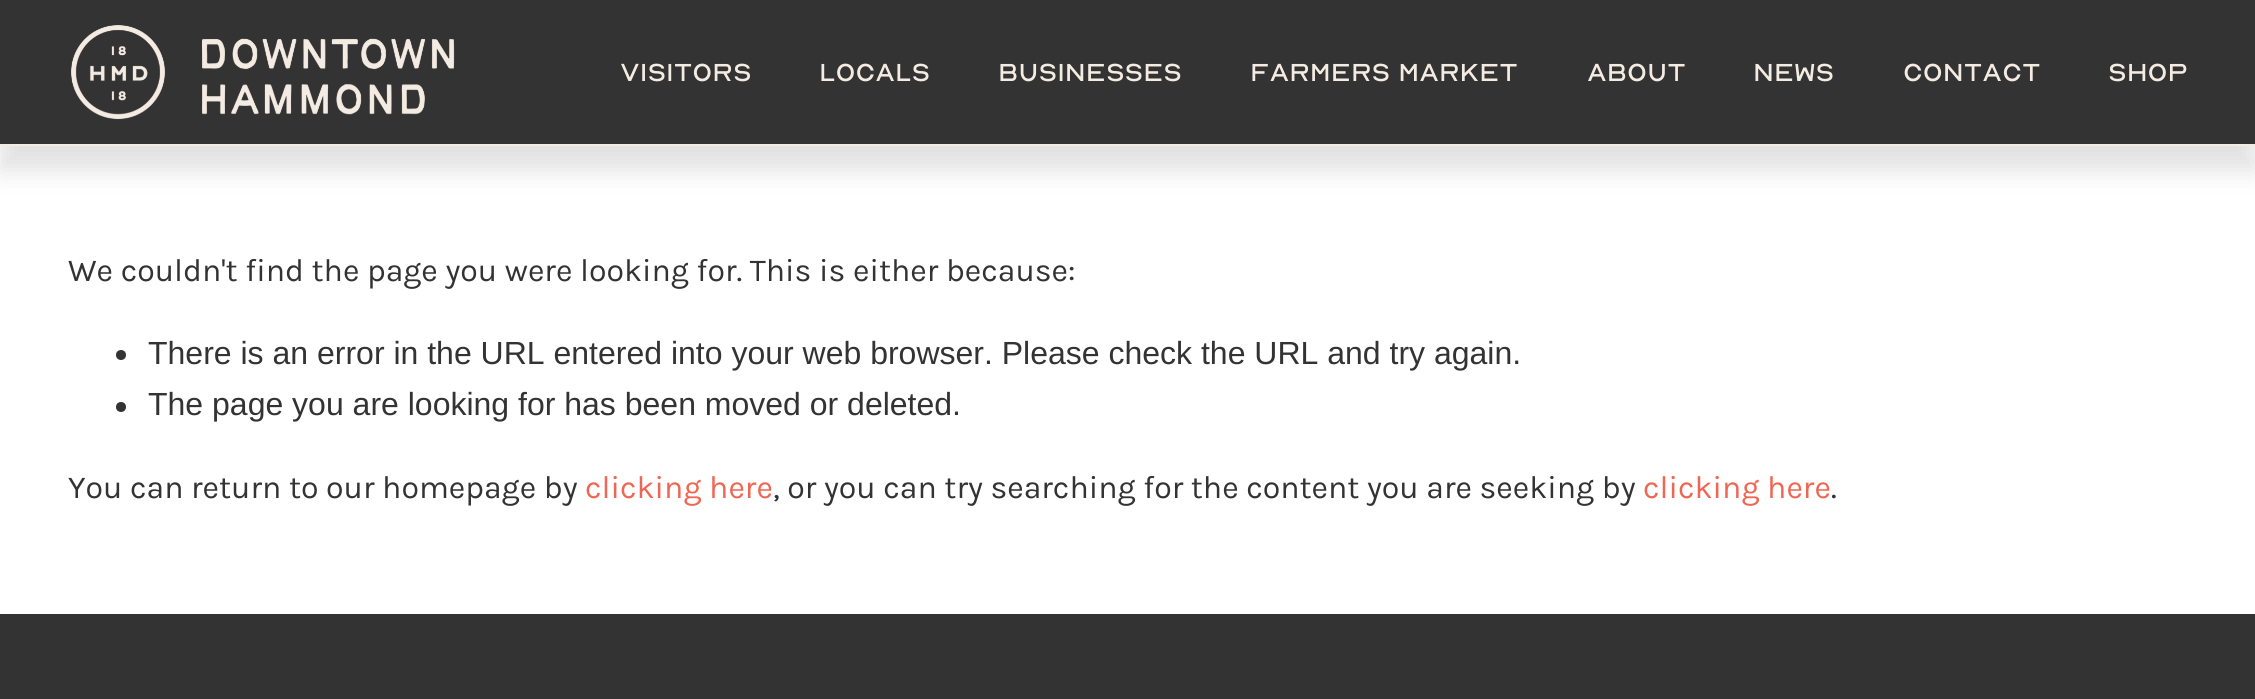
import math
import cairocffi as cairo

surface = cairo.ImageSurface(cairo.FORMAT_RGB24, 2255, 699)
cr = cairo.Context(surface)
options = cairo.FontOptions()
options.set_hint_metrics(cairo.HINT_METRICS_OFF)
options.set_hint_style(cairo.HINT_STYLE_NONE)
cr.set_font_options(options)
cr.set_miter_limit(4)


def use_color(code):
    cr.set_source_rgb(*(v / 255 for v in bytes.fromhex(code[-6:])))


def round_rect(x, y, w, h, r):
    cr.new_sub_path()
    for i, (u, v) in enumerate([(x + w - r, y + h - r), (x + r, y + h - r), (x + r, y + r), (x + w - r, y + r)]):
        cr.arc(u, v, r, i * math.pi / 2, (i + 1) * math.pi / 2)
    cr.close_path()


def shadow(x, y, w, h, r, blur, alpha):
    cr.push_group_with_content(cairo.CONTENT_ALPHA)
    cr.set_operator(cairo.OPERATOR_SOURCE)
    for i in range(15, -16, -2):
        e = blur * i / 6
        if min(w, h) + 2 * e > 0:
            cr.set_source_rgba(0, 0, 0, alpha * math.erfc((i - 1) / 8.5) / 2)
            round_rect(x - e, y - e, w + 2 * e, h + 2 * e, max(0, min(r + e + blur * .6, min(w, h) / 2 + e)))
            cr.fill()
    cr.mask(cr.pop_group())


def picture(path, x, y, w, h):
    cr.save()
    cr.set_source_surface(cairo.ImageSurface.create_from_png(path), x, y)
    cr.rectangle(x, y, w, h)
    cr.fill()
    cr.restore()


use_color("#ffffff")
cr.paint()
use_color("#333333")
cr.rectangle(0, 0, 2255, 144)
cr.fill()
cr.save()
cr.rectangle(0, 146, 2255, 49)
cr.clip()
use_color("#e1e1e1")
shadow(0, 24, 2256, 146, 0, 12, 1)
cr.restore()
picture("img1.png", 71, 25, 384, 95)
cr.select_font_face("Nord")
cr.set_font_size(26.5)
use_color("#f4ece2")
cr.move_to(620, 81)
cr.show_text("Visitors")
cr.move_to(819, 81)
cr.show_text("Locals")
cr.move_to(998, 81)
cr.show_text("Businesses")
cr.move_to(1250, 81)
cr.show_text("Farmers Market")
cr.move_to(1587, 81)
cr.show_text("About")
cr.move_to(1753, 81)
cr.show_text("News")
cr.move_to(1903, 81)
cr.show_text("Contact")
cr.move_to(2108, 81)
cr.show_text("Shop")
cr.rectangle(0, 144, 2255, 2)
cr.fill()
cr.select_font_face("Karla")
cr.set_font_size(32)
use_color("#333333")
cr.move_to(68, 281)
cr.show_text("We couldn't find the page you were looking for. This is either because:")
cr.new_path()
cr.arc(121, 355, 5, 0, 2 * math.pi)
cr.fill()
cr.select_font_face("Liberation Sans")
cr.move_to(148, 364)
cr.show_text("There is an error in the URL entered into your web browser. Please check the URL and try again.")
cr.new_path()
cr.arc(121, 407, 5, 0, 2 * math.pi)
cr.fill()
cr.move_to(148, 415)
cr.show_text("The page you are looking for has been moved or deleted.")
cr.select_font_face("Karla")
cr.move_to(68, 498)
cr.show_text("You can return to our homepage by")
use_color("#ef6654")
cr.move_to(585, 498)
cr.show_text("clicking here")
use_color("#333333")
cr.move_to(773, 498)
cr.show_text(", or you can try searching for the content you are seeking by")
use_color("#ef6654")
cr.move_to(1643, 498)
cr.show_text("clicking here")
use_color("#333333")
cr.move_to(1831, 498)
cr.show_text(".")
cr.rectangle(0, 614, 2255, 85)
cr.fill()
surface.write_to_png("result.png")
